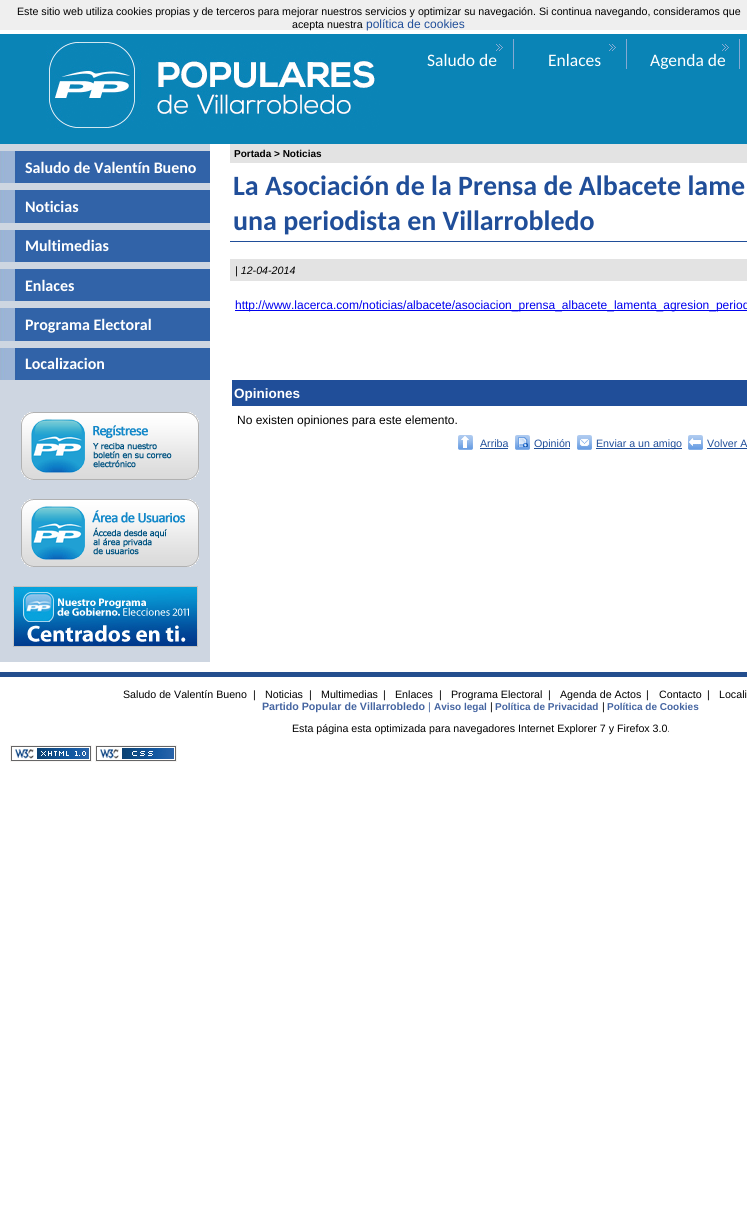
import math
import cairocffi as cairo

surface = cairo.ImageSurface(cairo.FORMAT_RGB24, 747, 1225)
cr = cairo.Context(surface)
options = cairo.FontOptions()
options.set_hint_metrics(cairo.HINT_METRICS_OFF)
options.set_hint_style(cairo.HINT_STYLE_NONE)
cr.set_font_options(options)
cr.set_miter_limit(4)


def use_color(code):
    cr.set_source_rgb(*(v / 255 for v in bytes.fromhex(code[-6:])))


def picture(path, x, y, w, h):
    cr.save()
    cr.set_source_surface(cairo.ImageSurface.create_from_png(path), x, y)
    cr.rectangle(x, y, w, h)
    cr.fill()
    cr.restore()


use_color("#ffffff")
cr.paint()
use_color("#efefef")
cr.rectangle(0, 0, 747, 30)
cr.fill()
cr.select_font_face("Liberation Sans")
cr.set_font_size(10.67)
use_color("#000000")
cr.move_to(17, 15)
cr.show_text("Este sitio web utiliza cookies propias y de terceros para mejorar nuestros servicios y optimizar su navegación. Si continua navegando, consideramos que")
cr.move_to(292, 28)
cr.show_text("acepta nuestra")
cr.set_font_size(12)
use_color("#204e99")
cr.move_to(366, 28)
cr.show_text("política de cookies")
use_color("#0a84b6")
cr.rectangle(0, 34, 747, 110)
cr.fill()
picture("img1.png", 46, 42, 334, 88)
picture("img2.png", 496, 39, 18, 30)
cr.select_font_face("Carlito")
cr.set_font_size(17.5)
use_color("#ffffff")
cr.move_to(427, 66)
cr.show_text("Saludo de")
picture("img2.png", 609, 39, 18, 30)
cr.move_to(548, 66)
cr.show_text("Enlaces")
picture("img2.png", 722, 39, 18, 30)
cr.move_to(650, 66)
cr.show_text("Agenda de")
use_color("#ced6e1")
cr.rectangle(0, 144, 210, 518)
cr.fill()
use_color("#3163a8")
cr.rectangle(17, 151, 193, 32)
cr.fill()
picture("img3.png", 0, 151, 17, 32)
cr.select_font_face("Carlito", cairo.FONT_SLANT_NORMAL, cairo.FONT_WEIGHT_BOLD)
cr.set_font_size(16)
use_color("#ffffff")
cr.move_to(25, 173)
cr.show_text("Saludo de Valentín Bueno")
use_color("#3163a8")
cr.rectangle(17, 190, 193, 33)
cr.fill()
picture("img4.png", 0, 190, 17, 33)
use_color("#ffffff")
cr.move_to(25, 212)
cr.show_text("Noticias")
use_color("#3163a8")
cr.rectangle(17, 230, 193, 32)
cr.fill()
picture("img3.png", 0, 230, 17, 32)
use_color("#ffffff")
cr.move_to(25, 251)
cr.show_text("Multimedias")
use_color("#3163a8")
cr.rectangle(17, 269, 193, 32)
cr.fill()
picture("img3.png", 0, 269, 17, 32)
use_color("#ffffff")
cr.move_to(25, 291)
cr.show_text("Enlaces")
use_color("#3163a8")
cr.rectangle(17, 308, 193, 33)
cr.fill()
picture("img4.png", 0, 308, 17, 33)
use_color("#ffffff")
cr.move_to(25, 330)
cr.show_text("Programa Electoral")
use_color("#3163a8")
cr.rectangle(17, 348, 193, 32)
cr.fill()
picture("img3.png", 0, 348, 17, 32)
use_color("#ffffff")
cr.move_to(25, 369)
cr.show_text("Localizacion")
picture("img5.png", 21, 412, 178, 68)
picture("img6.png", 21, 499, 178, 68)
picture("img7.png", 13, 586, 185, 61)
use_color("#e3e3e3")
cr.rectangle(230, 144, 517, 19)
cr.fill()
cr.select_font_face("Liberation Sans", cairo.FONT_SLANT_NORMAL, cairo.FONT_WEIGHT_BOLD)
cr.set_font_size(10)
use_color("#000000")
cr.move_to(234, 157)
cr.show_text("Portada > Noticias")
use_color("#204e99")
cr.rectangle(230, 241, 517, 1)
cr.fill()
cr.select_font_face("Carlito", cairo.FONT_SLANT_NORMAL, cairo.FONT_WEIGHT_BOLD)
cr.set_font_size(28)
cr.move_to(233, 195)
cr.show_text("La Asociación de la Prensa de Albacete lame")
cr.move_to(233, 230)
cr.show_text("una periodista en Villarrobledo")
use_color("#e3e3e3")
cr.rectangle(230, 259, 517, 22)
cr.fill()
cr.select_font_face("Liberation Sans", cairo.FONT_SLANT_ITALIC)
cr.set_font_size(10.67)
use_color("#000000")
cr.move_to(235, 274)
cr.show_text("| 12-04-2014")
use_color("#0000ee")
cr.rectangle(235, 310, 512, 1)
cr.fill()
cr.select_font_face("Liberation Sans")
cr.set_font_size(12)
cr.move_to(235, 309)
cr.show_text("http://www.lacerca.com/noticias/albacete/asociacion_prensa_albacete_lamenta_agresion_period")
use_color("#204e99")
cr.rectangle(232, 380, 515, 26)
cr.fill()
cr.select_font_face("Liberation Sans", cairo.FONT_SLANT_NORMAL, cairo.FONT_WEIGHT_BOLD)
cr.set_font_size(13.5)
use_color("#ffffff")
cr.move_to(234, 398)
cr.show_text("Opiniones")
cr.select_font_face("Liberation Sans")
cr.set_font_size(12)
use_color("#000000")
cr.move_to(237, 424)
cr.show_text("No existen opiniones para este elemento.")
picture("img8.png", 458, 435, 15, 15)
cr.set_font_size(10.67)
use_color("#204e99")
cr.move_to(480, 447)
cr.show_text("Arriba")
cr.rectangle(480, 448, 28, 1)
cr.fill()
picture("img9.png", 515, 435, 15, 15)
cr.rectangle(534, 448, 36, 1)
cr.fill()
cr.move_to(534, 447)
cr.show_text("Opinión")
picture("img10.png", 577, 435, 15, 15)
cr.rectangle(596, 448, 86, 1)
cr.fill()
cr.move_to(596, 447)
cr.show_text("Enviar a un amigo")
picture("img11.png", 688, 435, 15, 15)
cr.move_to(707, 447)
cr.show_text("Volver A")
cr.rectangle(707, 448, 40, 1)
cr.fill()
use_color("#234e8e")
cr.rectangle(0, 672, 747, 5)
cr.fill()
use_color("#000000")
cr.move_to(123, 698)
cr.show_text("Saludo de Valentín Bueno")
cr.move_to(253, 698)
cr.show_text("|")
cr.move_to(265, 698)
cr.show_text("Noticias")
cr.move_to(309, 698)
cr.show_text("|")
cr.move_to(321, 698)
cr.show_text("Multimedias")
cr.move_to(383, 698)
cr.show_text("|")
cr.move_to(395, 698)
cr.show_text("Enlaces")
cr.move_to(439, 698)
cr.show_text("|")
cr.move_to(451, 698)
cr.show_text("Programa Electoral")
cr.move_to(548, 698)
cr.show_text("|")
cr.move_to(560, 698)
cr.show_text("Agenda de Actos")
cr.move_to(646, 698)
cr.show_text("|")
cr.move_to(659, 698)
cr.show_text("Contacto")
cr.move_to(707, 698)
cr.show_text("|")
cr.move_to(719, 698)
cr.show_text("Locali")
cr.select_font_face("Liberation Sans", cairo.FONT_SLANT_NORMAL, cairo.FONT_WEIGHT_BOLD)
use_color("#4565a1")
cr.move_to(262, 710)
cr.show_text("Partido Popular de Villarrobledo")
cr.select_font_face("Liberation Sans")
cr.move_to(428, 710)
cr.show_text("|")
cr.select_font_face("Liberation Sans", cairo.FONT_SLANT_NORMAL, cairo.FONT_WEIGHT_BOLD)
cr.set_font_size(10)
cr.move_to(434, 710)
cr.show_text("Aviso legal")
cr.select_font_face("Liberation Sans")
cr.set_font_size(10.67)
use_color("#000000")
cr.move_to(490, 710)
cr.show_text("|")
cr.select_font_face("Liberation Sans", cairo.FONT_SLANT_NORMAL, cairo.FONT_WEIGHT_BOLD)
cr.set_font_size(10)
use_color("#4565a1")
cr.move_to(495, 710)
cr.show_text("Política de Privacidad")
cr.select_font_face("Liberation Sans")
cr.set_font_size(10.67)
use_color("#000000")
cr.move_to(602, 710)
cr.show_text("|")
cr.select_font_face("Liberation Sans", cairo.FONT_SLANT_NORMAL, cairo.FONT_WEIGHT_BOLD)
cr.set_font_size(10)
use_color("#4565a1")
cr.move_to(607, 710)
cr.show_text("Política de Cookies")
cr.select_font_face("Liberation Sans")
cr.set_font_size(10.67)
use_color("#000000")
cr.move_to(292, 732)
cr.show_text("Esta página esta optimizada para navegadores Internet Explorer 7 y Firefox 3.0.")
picture("img12.png", 10, 745, 82, 17)
picture("img13.png", 95, 745, 82, 17)
surface.write_to_png("result.png")
